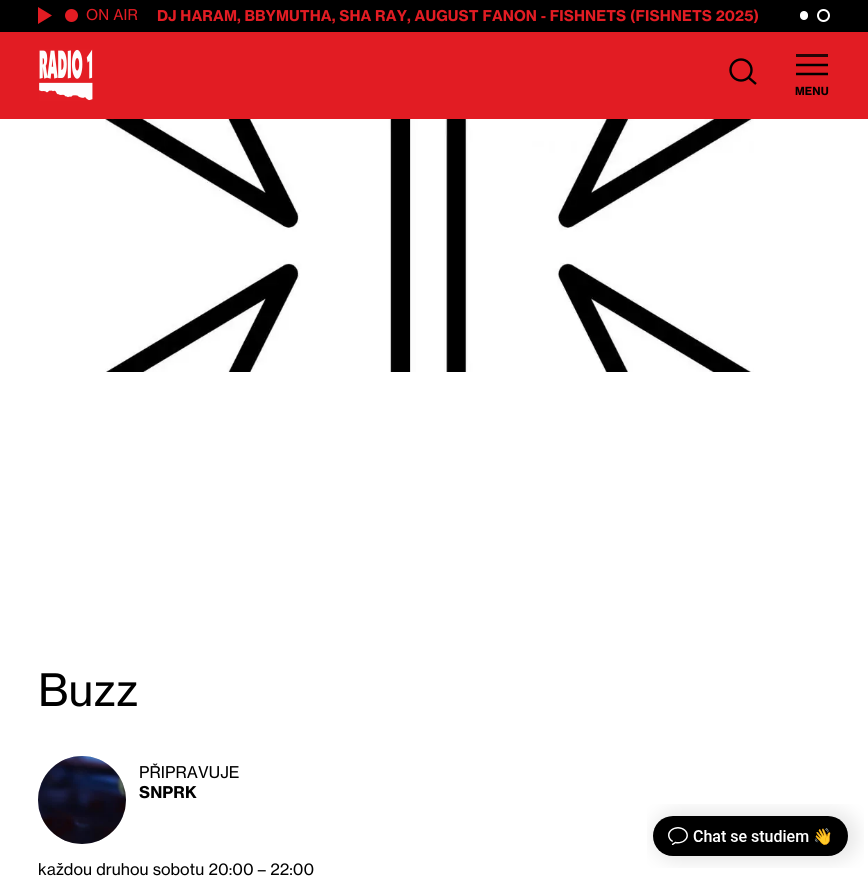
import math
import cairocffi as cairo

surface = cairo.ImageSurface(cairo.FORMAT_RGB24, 868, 876)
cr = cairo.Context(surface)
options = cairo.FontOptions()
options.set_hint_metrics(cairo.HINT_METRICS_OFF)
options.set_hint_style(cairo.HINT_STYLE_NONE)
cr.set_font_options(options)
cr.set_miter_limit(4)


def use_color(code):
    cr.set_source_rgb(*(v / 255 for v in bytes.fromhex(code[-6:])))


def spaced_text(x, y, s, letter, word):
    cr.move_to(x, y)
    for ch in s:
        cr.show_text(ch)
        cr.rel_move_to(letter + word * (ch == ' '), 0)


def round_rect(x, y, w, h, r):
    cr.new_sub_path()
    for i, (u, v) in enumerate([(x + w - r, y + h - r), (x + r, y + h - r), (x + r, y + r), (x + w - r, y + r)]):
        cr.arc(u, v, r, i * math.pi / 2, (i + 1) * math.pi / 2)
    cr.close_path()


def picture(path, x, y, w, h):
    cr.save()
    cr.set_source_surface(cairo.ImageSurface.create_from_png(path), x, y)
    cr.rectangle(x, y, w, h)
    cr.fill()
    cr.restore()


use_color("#ffffff")
cr.paint()
use_color("#000000")
cr.rectangle(0, 0, 868, 32)
cr.fill()
use_color("#e21c23")
cr.new_path()
cr.move_to(52, 15.5)
cr.line_to(38, 24)
cr.line_to(38, 7)
cr.close_path()
cr.fill()
cr.arc(71.5, 15.5, 6.5, 0, 2 * math.pi)
cr.fill()
cr.select_font_face("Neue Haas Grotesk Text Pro")
cr.set_font_size(14.7)
spaced_text(86, 20, "ON AIR", 0.1, 0)
cr.select_font_face("Neue Haas Grotesk Text Pro", cairo.FONT_SLANT_NORMAL, cairo.FONT_WEIGHT_BOLD)
spaced_text(157, 21, "DJ HARAM, BBYMUTHA, SHA RAY, AUGUST FANON - FISHNETS (FISHNETS 2025)", 0.1, 0)
use_color("#ffffff")
round_rect(799, 10, 10, 11, 5)
cr.fill_preserve()
use_color("#000000")
cr.stroke()
cr.arc(823.5, 15.5, 5.5, 0, 2 * math.pi)
use_color("#ffffff")
cr.stroke()
use_color("#e21c23")
cr.rectangle(0, 32, 868, 87)
cr.fill()
picture("img1.png", 39, 49, 54, 52)
cr.arc(741, 70, 10.5, 0, 2 * math.pi)
use_color("#000000")
cr.set_line_width(2.4)
cr.stroke()
cr.new_path()
cr.move_to(748.5, 77.5)
cr.line_to(756, 84)
cr.stroke()
use_color("#260506")
cr.rectangle(796, 54, 32, 3)
cr.fill()
cr.new_path()
cr.move_to(796, 65)
cr.line_to(828, 65)
cr.move_to(796, 74)
cr.line_to(828, 74)
use_color("#000000")
cr.set_line_width(2.5)
cr.stroke()
cr.set_font_size(11)
spaced_text(795, 95, "MENU", 0.1, 0)
picture("img2.png", 105, 119, 649, 253)
cr.select_font_face("Neue Haas Grotesk Text Pro")
cr.set_font_size(44)
cr.move_to(38, 706)
cr.show_text("Buzz")
use_color("#c0bcc1")
cr.new_path()
cr.arc(82, 800, 44, 0, 2 * math.pi)
cr.fill()
picture("img3.png", 38, 756, 88, 88)
cr.set_font_size(16)
use_color("#000000")
spaced_text(139, 778, "PŘIPRAVUJE", 0.1, 0)
cr.select_font_face("Neue Haas Grotesk Text Pro", cairo.FONT_SLANT_NORMAL, cairo.FONT_WEIGHT_BOLD)
spaced_text(139, 798, "SNPRK", 0.1, 0)
cr.select_font_face("Neue Haas Grotesk Text Pro")
cr.move_to(38, 875)
cr.show_text("každou druhou sobotu 20:00 – 22:00")
picture("img4.png", 647, 804, 217, 64)
surface.write_to_png("result.png")
